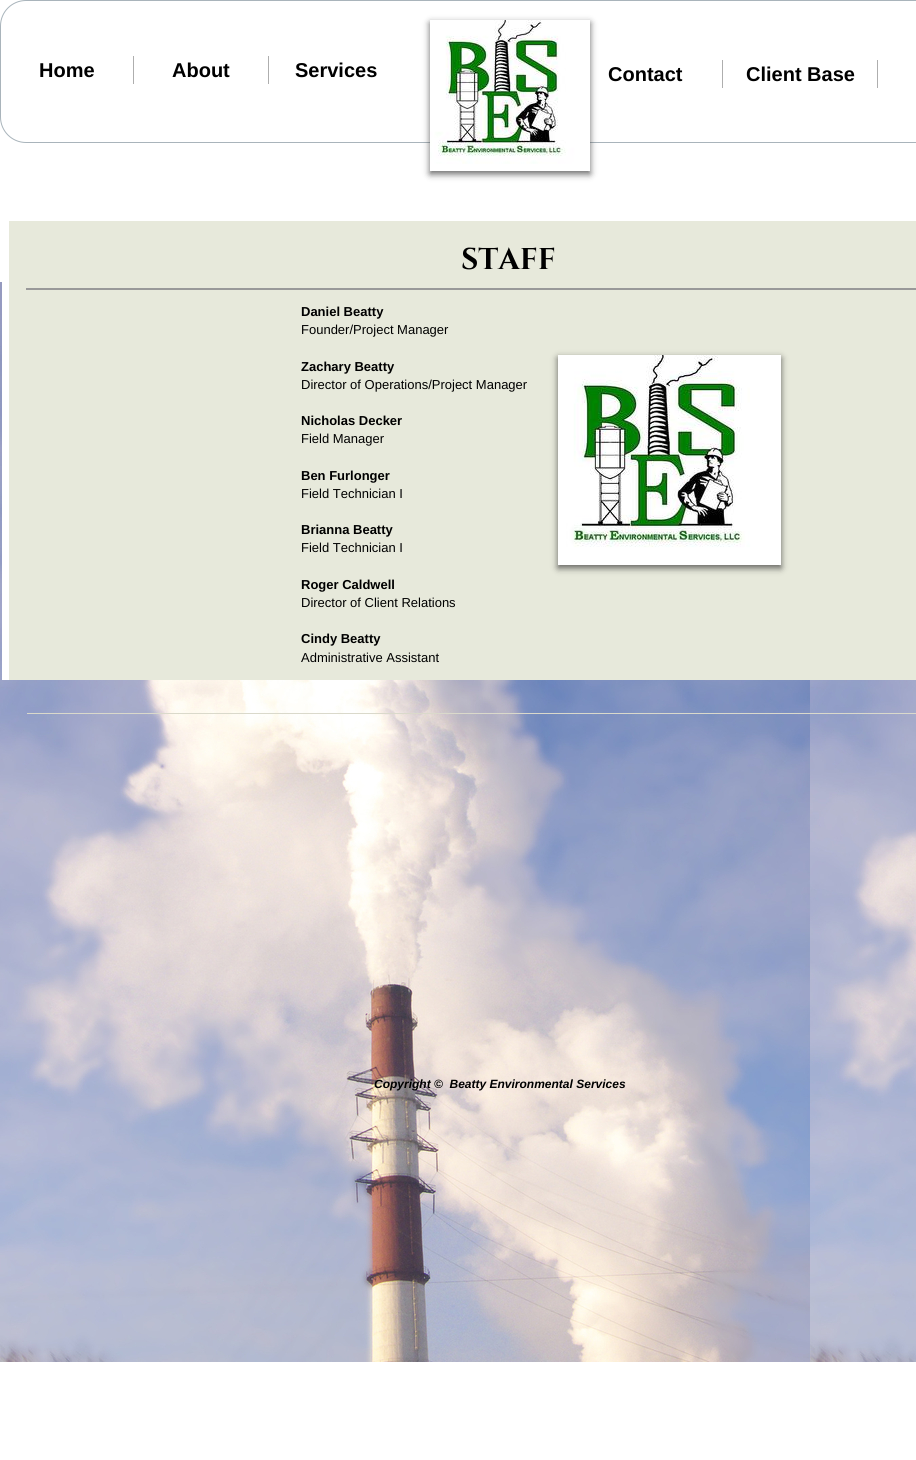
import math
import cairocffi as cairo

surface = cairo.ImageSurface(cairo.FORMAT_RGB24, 916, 1460)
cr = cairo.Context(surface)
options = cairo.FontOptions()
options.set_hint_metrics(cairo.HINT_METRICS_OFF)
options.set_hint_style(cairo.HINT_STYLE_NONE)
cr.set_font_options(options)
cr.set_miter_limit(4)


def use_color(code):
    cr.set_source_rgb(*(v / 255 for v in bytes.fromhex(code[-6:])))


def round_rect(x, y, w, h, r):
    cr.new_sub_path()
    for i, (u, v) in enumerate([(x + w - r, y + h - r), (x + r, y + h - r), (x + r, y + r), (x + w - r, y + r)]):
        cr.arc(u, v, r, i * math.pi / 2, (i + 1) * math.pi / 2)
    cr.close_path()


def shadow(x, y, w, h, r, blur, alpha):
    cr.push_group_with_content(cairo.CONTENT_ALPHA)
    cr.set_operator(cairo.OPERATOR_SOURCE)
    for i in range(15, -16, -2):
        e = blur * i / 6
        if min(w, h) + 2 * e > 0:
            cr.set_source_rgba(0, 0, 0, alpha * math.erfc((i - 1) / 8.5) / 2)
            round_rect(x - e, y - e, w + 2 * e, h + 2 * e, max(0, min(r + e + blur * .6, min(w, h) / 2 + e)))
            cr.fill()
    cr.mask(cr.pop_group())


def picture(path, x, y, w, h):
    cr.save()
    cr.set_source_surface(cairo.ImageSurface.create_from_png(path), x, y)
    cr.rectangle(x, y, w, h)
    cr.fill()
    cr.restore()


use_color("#ffffff")
cr.paint()
round_rect(0.5, 0.5, 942, 142, 25.5)
use_color("#a9b4bb")
cr.set_line_width(1)
cr.stroke()
use_color("#aeaeae")
cr.rectangle(133, 56, 1, 28)
cr.fill()
cr.select_font_face("Liberation Sans", cairo.FONT_SLANT_NORMAL, cairo.FONT_WEIGHT_BOLD)
cr.set_font_size(20)
use_color("#000000")
cr.move_to(39, 77)
cr.show_text("Home")
use_color("#aeaeae")
cr.rectangle(268, 56, 1, 28)
cr.fill()
use_color("#000000")
cr.move_to(172, 77)
cr.show_text("About")
cr.move_to(295, 77)
cr.show_text("Services")
cr.save()
cr.set_fill_rule(cairo.FILL_RULE_EVEN_ODD)
cr.new_path()
cr.move_to(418, 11)
cr.line_to(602, 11)
cr.line_to(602, 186)
cr.line_to(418, 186)
cr.close_path()
cr.move_to(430, 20)
cr.line_to(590, 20)
cr.line_to(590, 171)
cr.line_to(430, 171)
cr.close_path()
cr.clip()
use_color("#323232")
shadow(430, 23, 160, 151, 0, 3.5, 0.75)
cr.restore()
picture("img1.png", 430, 20, 160, 144)
use_color("#aeaeae")
cr.rectangle(722, 60, 1, 28)
cr.fill()
use_color("#000000")
cr.move_to(608, 81)
cr.show_text("Contact")
use_color("#aeaeae")
cr.rectangle(877, 60, 1, 28)
cr.fill()
use_color("#000000")
cr.move_to(746, 81)
cr.show_text("Client Base")
picture("img3.png", 0, 282, 916, 1080)
use_color("#e7e9db")
cr.rectangle(9, 221, 907, 459)
cr.fill()
use_color("#ffffff")
cr.rectangle(2, 282, 7, 398)
cr.fill()
cr.select_font_face("Cinzel", cairo.FONT_SLANT_NORMAL, cairo.FONT_WEIGHT_BOLD)
cr.set_font_size(30)
use_color("#000000")
cr.move_to(461, 269)
cr.show_text("STAFF")
use_color("#999999")
cr.rectangle(26, 288, 890, 2)
cr.fill()
cr.select_font_face("Liberation Sans", cairo.FONT_SLANT_NORMAL, cairo.FONT_WEIGHT_BOLD)
cr.set_font_size(13)
use_color("#000000")
cr.move_to(301, 316)
cr.show_text("Daniel Beatty")
cr.select_font_face("Liberation Sans")
cr.move_to(301, 334)
cr.show_text("Founder/Project Manager")
cr.select_font_face("Liberation Sans", cairo.FONT_SLANT_NORMAL, cairo.FONT_WEIGHT_BOLD)
cr.move_to(301, 371)
cr.show_text("Zachary Beatty")
cr.select_font_face("Liberation Sans")
cr.move_to(301, 389)
cr.show_text("Director of Operations/Project Manager")
cr.select_font_face("Liberation Sans", cairo.FONT_SLANT_NORMAL, cairo.FONT_WEIGHT_BOLD)
cr.move_to(301, 425)
cr.show_text("Nicholas Decker")
cr.select_font_face("Liberation Sans")
cr.move_to(301, 443)
cr.show_text("Field Manager")
cr.select_font_face("Liberation Sans", cairo.FONT_SLANT_NORMAL, cairo.FONT_WEIGHT_BOLD)
cr.move_to(301, 480)
cr.show_text("Ben Furlonger")
cr.select_font_face("Liberation Sans")
cr.move_to(301, 498)
cr.show_text("Field Technician I")
cr.select_font_face("Liberation Sans", cairo.FONT_SLANT_NORMAL, cairo.FONT_WEIGHT_BOLD)
cr.move_to(301, 534)
cr.show_text("Brianna Beatty")
cr.select_font_face("Liberation Sans")
cr.move_to(301, 552)
cr.show_text("Field Technician I")
cr.select_font_face("Liberation Sans", cairo.FONT_SLANT_NORMAL, cairo.FONT_WEIGHT_BOLD)
cr.move_to(301, 589)
cr.show_text("Roger Caldwell")
cr.select_font_face("Liberation Sans")
cr.move_to(301, 607)
cr.show_text("Director of Client Relations")
cr.select_font_face("Liberation Sans", cairo.FONT_SLANT_NORMAL, cairo.FONT_WEIGHT_BOLD)
cr.move_to(301, 643)
cr.show_text("Cindy Beatty")
cr.select_font_face("Liberation Sans")
cr.move_to(301, 662)
cr.show_text("Administrative Assistant")
use_color("#323232")
shadow(558, 358, 223, 210, 0, 3.5, 0.75)
picture("img2.png", 558, 355, 223, 210)
use_color("#dad9cb")
cr.rectangle(27, 713, 889, 1)
cr.fill()
cr.select_font_face("Liberation Sans", cairo.FONT_SLANT_ITALIC, cairo.FONT_WEIGHT_BOLD)
cr.set_font_size(12)
use_color("#000000")
cr.move_to(374, 1088)
cr.show_text("Copyright ©  Beatty Environmental Services")
surface.write_to_png("result.png")
